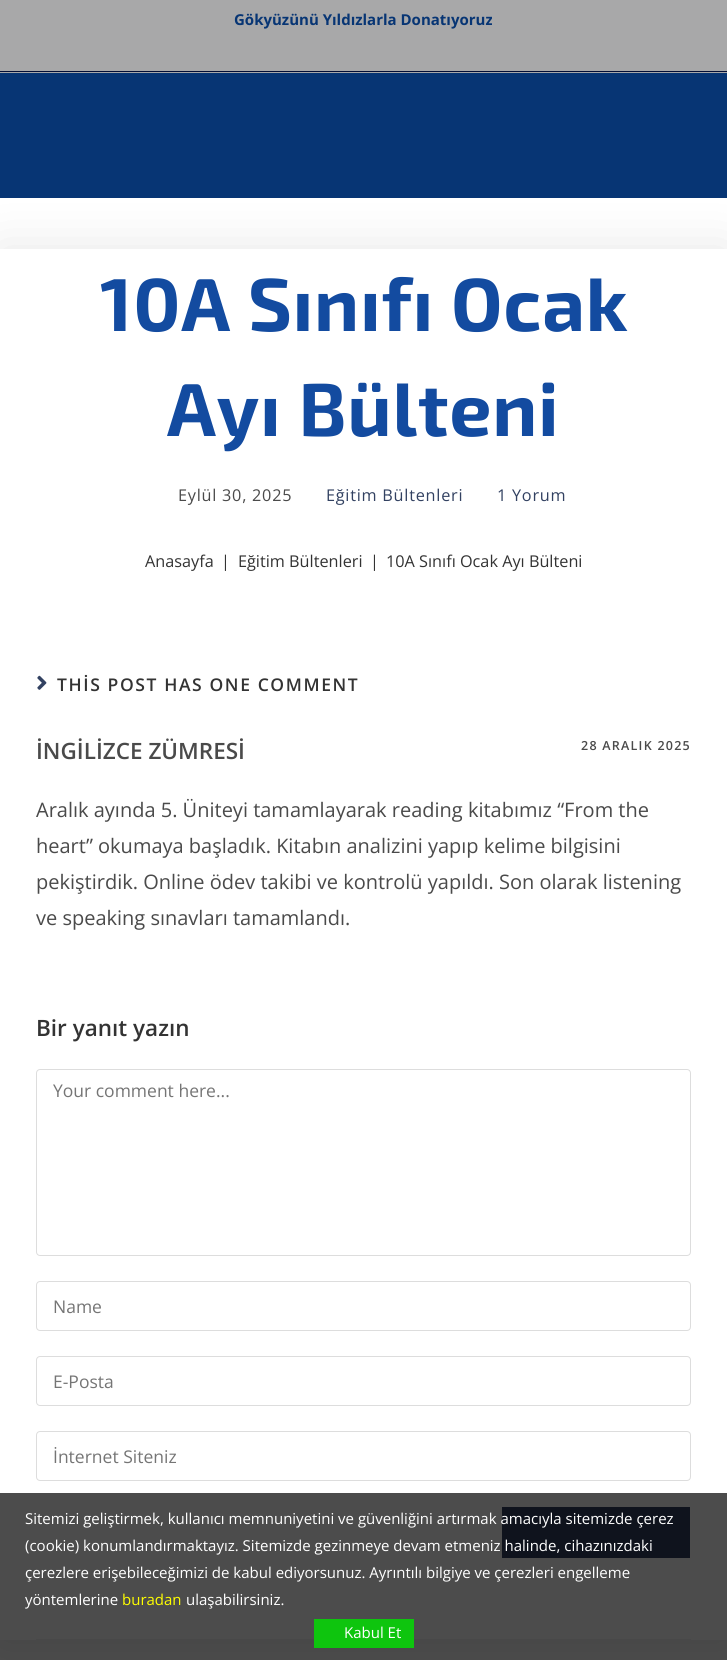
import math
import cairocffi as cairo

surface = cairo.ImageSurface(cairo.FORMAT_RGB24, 727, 1660)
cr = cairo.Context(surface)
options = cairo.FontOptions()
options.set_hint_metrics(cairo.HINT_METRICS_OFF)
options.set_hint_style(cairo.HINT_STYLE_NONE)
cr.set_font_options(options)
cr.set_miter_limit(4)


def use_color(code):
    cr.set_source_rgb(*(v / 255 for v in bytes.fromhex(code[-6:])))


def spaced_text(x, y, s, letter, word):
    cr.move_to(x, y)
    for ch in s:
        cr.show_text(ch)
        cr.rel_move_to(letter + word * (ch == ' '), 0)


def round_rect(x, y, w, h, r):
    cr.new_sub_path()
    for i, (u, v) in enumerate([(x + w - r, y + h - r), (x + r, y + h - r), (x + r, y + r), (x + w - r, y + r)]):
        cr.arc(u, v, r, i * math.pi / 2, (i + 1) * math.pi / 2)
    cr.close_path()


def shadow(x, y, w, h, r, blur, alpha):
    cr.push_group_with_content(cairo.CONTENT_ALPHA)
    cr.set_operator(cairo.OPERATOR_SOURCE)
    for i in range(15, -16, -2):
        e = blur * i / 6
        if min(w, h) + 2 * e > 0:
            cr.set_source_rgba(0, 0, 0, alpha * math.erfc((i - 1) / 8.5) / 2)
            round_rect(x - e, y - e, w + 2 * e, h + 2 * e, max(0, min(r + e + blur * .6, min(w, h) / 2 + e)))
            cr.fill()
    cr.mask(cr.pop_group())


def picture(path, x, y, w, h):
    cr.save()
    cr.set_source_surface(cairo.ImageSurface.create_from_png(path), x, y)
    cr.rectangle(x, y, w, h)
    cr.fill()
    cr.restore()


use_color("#ffffff")
cr.paint()
use_color("#a8a8a9")
cr.rectangle(0, 0, 727, 73)
cr.fill()
use_color("#020d35")
cr.rectangle(0, 71, 727, 1)
cr.fill()
cr.select_font_face("Open Sans", cairo.FONT_SLANT_NORMAL, cairo.FONT_WEIGHT_BOLD)
cr.set_font_size(15)
use_color("#073574")
cr.move_to(234, 25)
cr.show_text("Gökyüzünü Yıldızlarla Donatıyoruz")
cr.save()
cr.set_fill_rule(cairo.FILL_RULE_EVEN_ODD)
cr.new_path()
cr.move_to(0, 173)
cr.line_to(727, 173)
cr.line_to(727, 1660)
cr.line_to(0, 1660)
cr.close_path()
cr.move_to(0, 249)
cr.line_to(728, 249)
cr.line_to(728, 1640)
cr.line_to(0, 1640)
cr.close_path()
cr.clip()
use_color("#000000")
shadow(0, 249, 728, 1391, 0, 25, 0.1)
cr.restore()
cr.rectangle(0, 73, 727, 125)
cr.fill()
cr.select_font_face("Exo 2", cairo.FONT_SLANT_NORMAL, cairo.FONT_WEIGHT_BOLD)
cr.set_font_size(75)
use_color("#134ba0")
spaced_text(100, 331, "10A Sınıfı Ocak", 0.75, 0)
spaced_text(167, 436, "Ayı Bülteni", 0.75, 0)
cr.select_font_face("Open Sans")
cr.set_font_size(16.25)
use_color("#4a4a4a")
spaced_text(178, 501, "Eylül 30, 2025", 0.75, 0)
use_color("#324161")
spaced_text(326, 501, "Eğitim Bültenleri", 0.75, 0)
spaced_text(497, 501, "1 Yorum", 0.75, 0)
use_color("#333333")
cr.move_to(145, 567)
cr.show_text("Anasayfa")
cr.move_to(221, 567)
cr.show_text("|")
cr.move_to(238, 567)
cr.show_text("Eğitim Bültenleri")
cr.move_to(370, 567)
cr.show_text("|")
cr.move_to(386, 567)
cr.show_text("10A Sınıfı Ocak Ayı Bülteni")
picture("img1.png", 37, 675, 10, 15)
cr.select_font_face("Open Sans SemiBold")
cr.set_font_size(17.5)
spaced_text(57, 691, "THİS POST HAS ONE COMMENT", 1.6, 0)
cr.set_font_size(22.5)
use_color("#4a4a4a")
cr.move_to(36, 759)
cr.show_text("İNGİLİZCE ZÜMRESİ")
cr.set_font_size(12.5)
spaced_text(581, 750, "28 ARALIK 2025", 1.25, 0)
cr.select_font_face("Open Sans")
cr.set_font_size(20)
cr.move_to(36, 817)
cr.show_text("Aralık ayında 5. Üniteyi tamamlayarak reading kitabımız “From the")
cr.move_to(36, 853)
cr.show_text("heart” okumaya başladık. Kitabın analizini yapıp kelime bilgisini")
cr.move_to(36, 889)
cr.show_text("pekiştirdik. Online ödev takibi ve kontrolü yapıldı. Son olarak listening")
cr.move_to(36, 925)
cr.show_text("ve speaking sınavları tamamlandı.")
cr.select_font_face("Open Sans SemiBold")
cr.set_font_size(22.5)
use_color("#333333")
cr.move_to(36, 1036)
cr.show_text("Bir yanıt yazın")
round_rect(36.5, 1069.5, 654, 186, 3.5)
use_color("#dddddd")
cr.set_line_width(1)
cr.stroke()
cr.select_font_face("Open Sans")
cr.set_font_size(17.5)
use_color("#757575")
cr.move_to(53, 1097)
cr.show_text("Your comment here...")
round_rect(36.5, 1281.5, 654, 49, 3.5)
use_color("#dddddd")
cr.stroke()
use_color("#757575")
cr.move_to(53, 1313)
cr.show_text("Name")
round_rect(36.5, 1356.5, 654, 49, 3.5)
use_color("#dddddd")
cr.stroke()
use_color("#757575")
cr.move_to(53, 1388)
cr.show_text("E-Posta")
round_rect(36.5, 1431.5, 654, 49, 3.5)
use_color("#dddddd")
cr.stroke()
use_color("#757575")
cr.move_to(53, 1463)
cr.show_text("İnternet Siteniz")
use_color("#324161")
cr.rectangle(502, 1507, 188, 51)
cr.fill()
use_color("#f1f1f1")
cr.rectangle(36, 1639, 655, 1)
cr.fill()
cr.set_source_rgba(0, 0, 0, 0.7)
cr.rectangle(0, 1493, 727, 167)
cr.fill()
cr.set_font_size(15)
use_color("#ffffff")
cr.move_to(25, 1524)
cr.show_text("Sitemizi geliştirmek, kullanıcı memnuniyetini ve güvenliğini artırmak amacıyla sitemizde çerez")
cr.move_to(25, 1551)
cr.show_text("(cookie) konumlandırmaktayız. Sitemizde gezinmeye devam etmeniz halinde, cihazınızdaki")
cr.move_to(25, 1578)
cr.show_text("çerezlere erişebileceğimizi de kabul ediyorsunuz. Ayrıntılı bilgiye ve çerezleri engelleme")
cr.move_to(25, 1605)
cr.show_text("yöntemlerine")
use_color("#ffff00")
cr.move_to(122, 1605)
cr.show_text("buradan")
use_color("#ffffff")
cr.move_to(186, 1605)
cr.show_text("ulaşabilirsiniz.")
use_color("#0ec50e")
cr.rectangle(314, 1619, 100, 29)
cr.fill()
use_color("#ffffff")
cr.move_to(344, 1638)
cr.show_text("Kabul Et")
surface.write_to_png("result.png")
